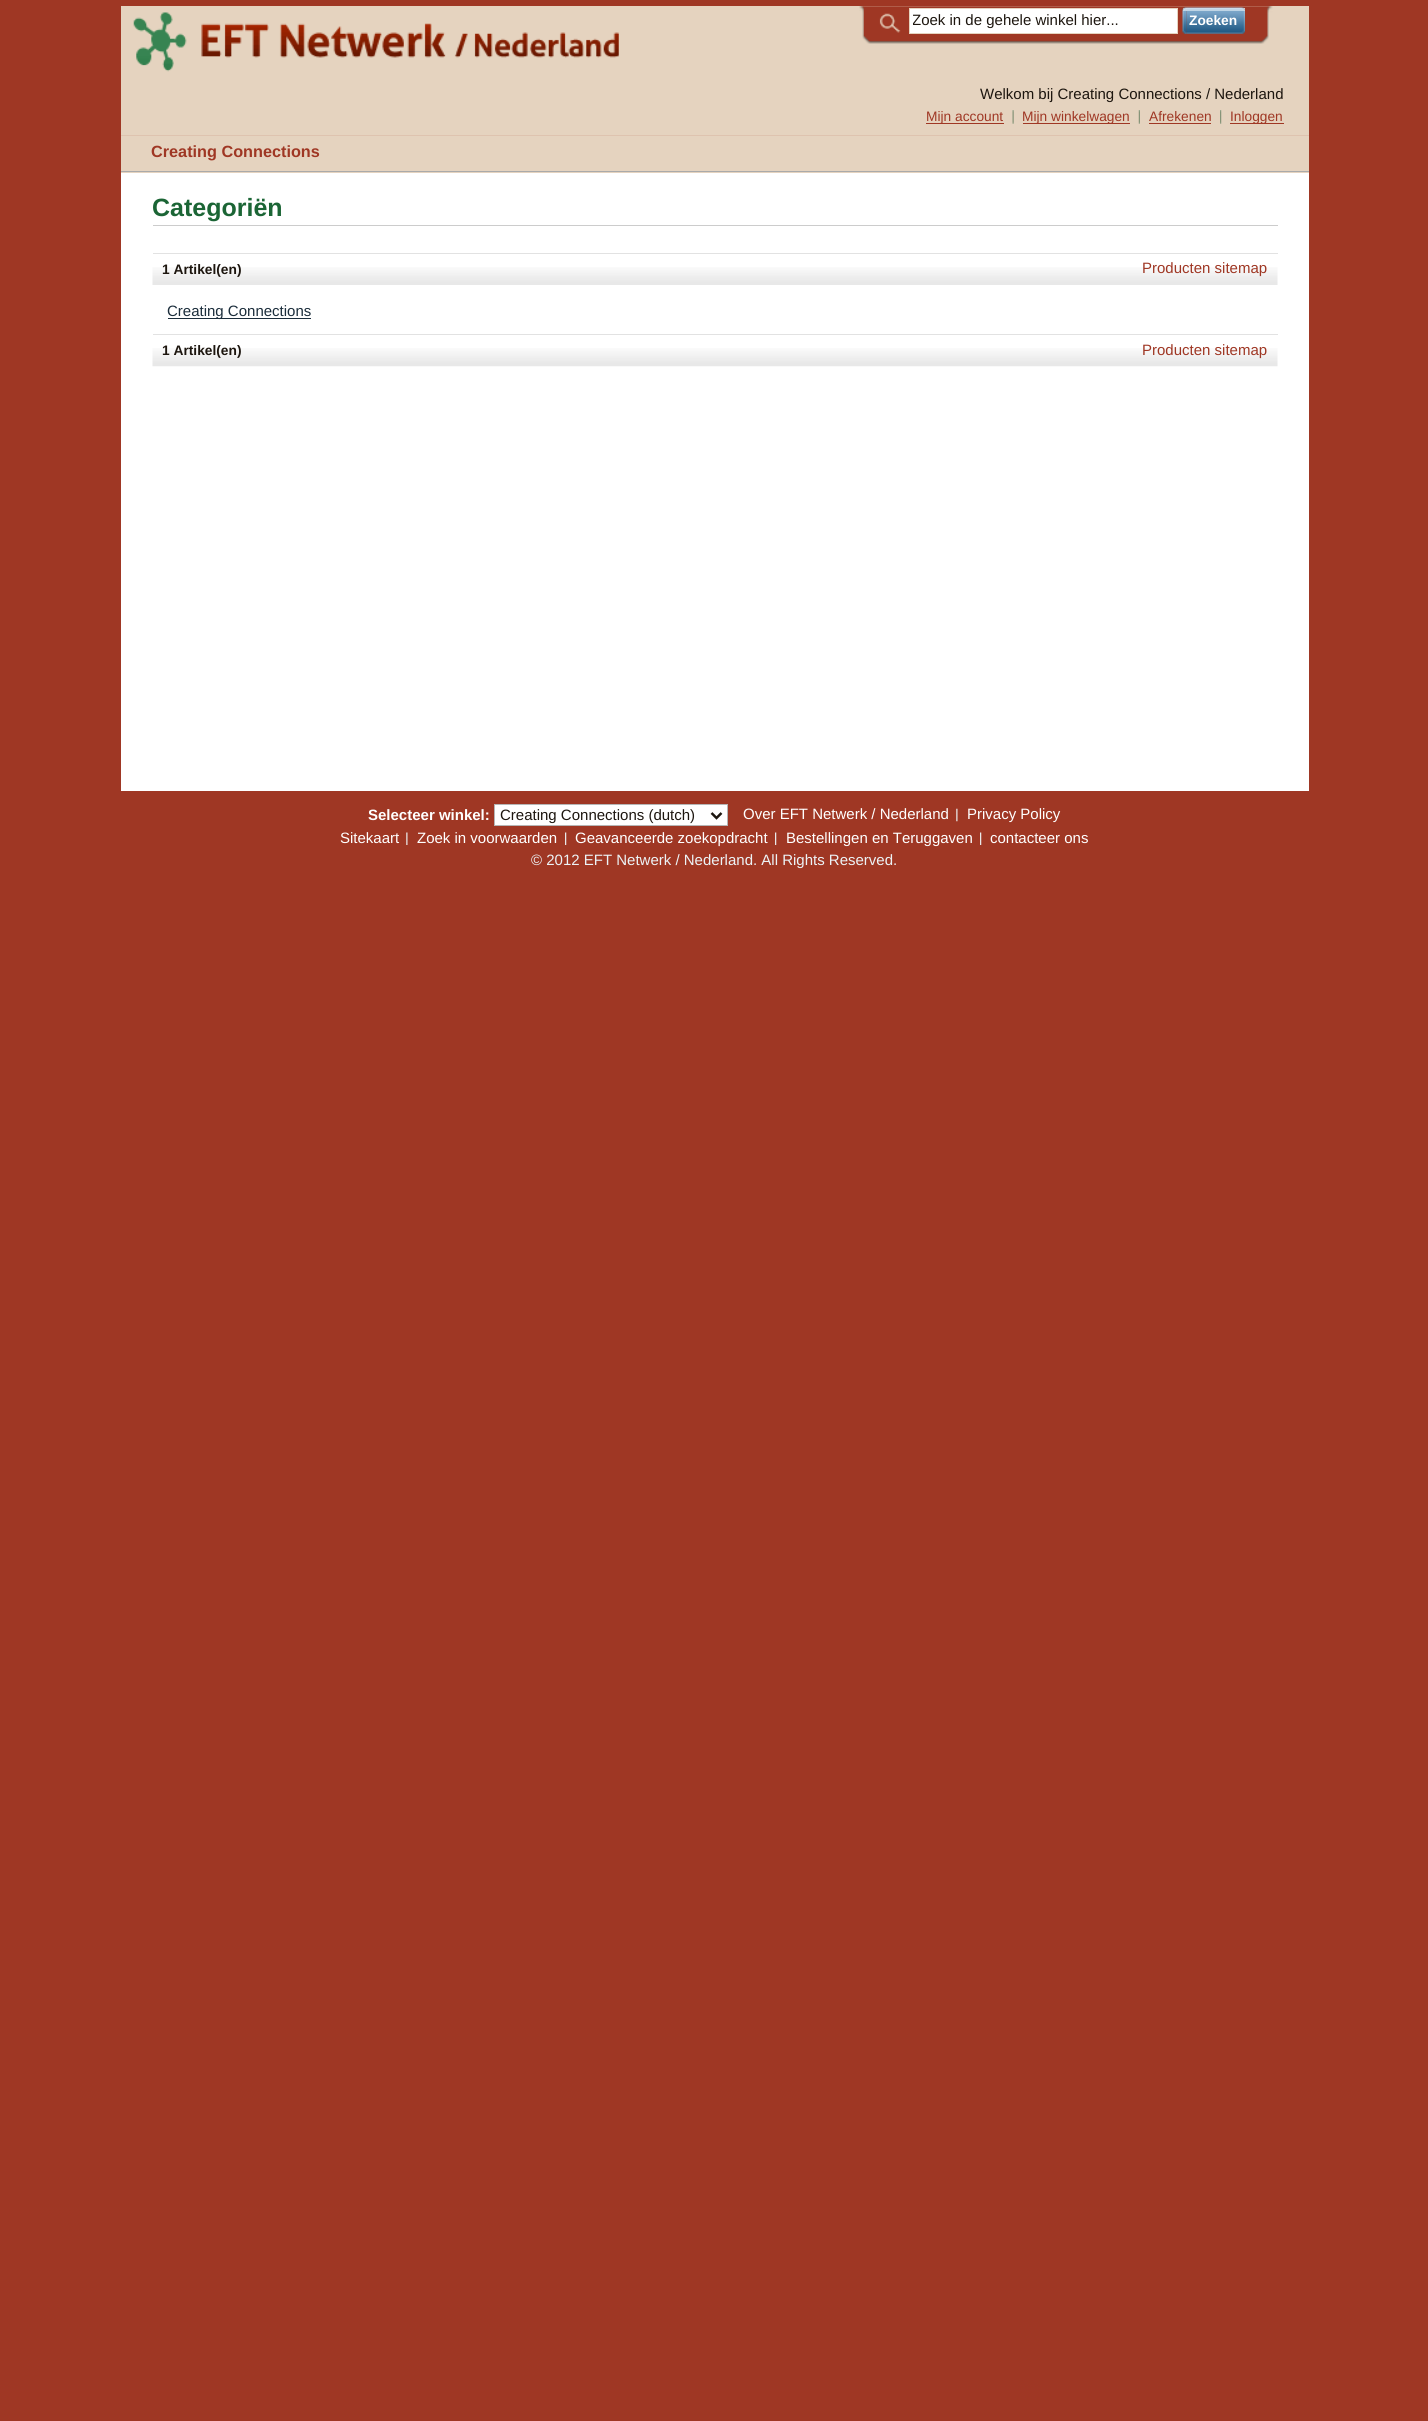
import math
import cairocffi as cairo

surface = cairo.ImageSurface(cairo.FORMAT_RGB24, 1428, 2421)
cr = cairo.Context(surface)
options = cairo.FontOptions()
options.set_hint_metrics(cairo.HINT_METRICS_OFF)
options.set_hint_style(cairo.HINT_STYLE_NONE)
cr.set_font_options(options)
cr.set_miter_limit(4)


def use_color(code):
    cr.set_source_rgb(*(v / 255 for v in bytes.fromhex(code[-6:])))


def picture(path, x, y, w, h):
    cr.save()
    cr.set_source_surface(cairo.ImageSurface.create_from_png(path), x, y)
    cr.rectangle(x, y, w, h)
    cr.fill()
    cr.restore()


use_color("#9f3724")
cr.paint()
use_color("#e5d3bf")
cr.rectangle(121, 6, 1188, 129)
cr.fill()
picture("img1.png", 133, 12, 486, 60)
picture("img2.png", 859, 6, 414, 38)
use_color("#ffffff")
cr.rectangle(909.5, 8.5, 268, 25)
cr.fill_preserve()
use_color("#e5d3bf")
cr.set_line_width(1)
cr.stroke()
cr.save()
cr.rectangle(913, 11, 261, 19)
cr.clip()
cr.select_font_face("Liberation Sans")
cr.set_font_size(15)
use_color("#1d160f")
cr.move_to(912, 25)
cr.show_text("Zoek in de gehele winkel hier...")
cr.restore()
picture("img3.png", 1182, 7, 5, 27)
cr.set_source_rgba(1, 1, 1, 0.5)
cr.rectangle(1183, 8, 62, 3)
cr.fill()
picture("img4.png", 1186, 7, 59, 27)
cr.rectangle(1186, 8, 59, 3)
cr.fill()
cr.select_font_face("Liberation Sans", cairo.FONT_SLANT_NORMAL, cairo.FONT_WEIGHT_BOLD)
cr.set_font_size(13.75)
use_color("#ffffff")
cr.move_to(1189, 25)
cr.show_text("Zoeken")
cr.select_font_face("Liberation Sans")
cr.set_font_size(15)
use_color("#1d160f")
cr.move_to(980, 99)
cr.show_text("Welkom bij Creating Connections / Nederland")
picture("img5.png", 1012, 110, 2, 14)
use_color("#9f3724")
cr.rectangle(926, 123, 78, 1)
cr.fill()
cr.set_font_size(13.75)
cr.move_to(926, 121)
cr.show_text("Mijn account")
picture("img6.png", 1138, 110, 2, 14)
cr.rectangle(1023, 123, 107, 1)
cr.fill()
cr.move_to(1022, 121)
cr.show_text("Mijn winkelwagen")
picture("img7.png", 1220, 110, 2, 14)
cr.move_to(1149, 121)
cr.show_text("Afrekenen")
cr.rectangle(1149, 123, 62, 1)
cr.fill()
cr.rectangle(1230, 123, 54, 1)
cr.fill()
cr.move_to(1230, 121)
cr.show_text("Inloggen")
use_color("#e5d3bf")
cr.rectangle(121, 136, 1188, 37)
cr.fill()
use_color("#dec3af")
cr.rectangle(121, 135, 1188, 1)
cr.fill()
use_color("#aaaaaa")
cr.rectangle(121, 171, 1188, 1)
cr.fill()
cr.select_font_face("Liberation Sans", cairo.FONT_SLANT_NORMAL, cairo.FONT_WEIGHT_BOLD)
cr.set_font_size(16.25)
use_color("#9f3724")
cr.move_to(151, 157)
cr.show_text("Creating Connections")
use_color("#ffffff")
cr.rectangle(121, 173, 1188, 618)
cr.fill()
use_color("#cccccc")
cr.rectangle(153, 225, 1125, 1)
cr.fill()
cr.set_font_size(25)
use_color("#1b6535")
cr.move_to(152, 216)
cr.show_text("Categoriën")
picture("img8.png", 152, 267, 1126, 18)
use_color("#e2e2e2")
cr.rectangle(153, 253, 1125, 1)
cr.fill()
cr.set_font_size(13.75)
use_color("#1d160f")
cr.move_to(162, 274)
cr.show_text("1 Artikel(en)")
cr.select_font_face("Liberation Sans")
cr.set_font_size(15)
use_color("#9f3724")
cr.move_to(1142, 273)
cr.show_text("Producten sitemap")
use_color("#1b2d3b")
cr.rectangle(168, 318, 143, 1)
cr.fill()
cr.move_to(167, 316)
cr.show_text("Creating Connections")
picture("img9.png", 152, 348, 1126, 19)
use_color("#e2e2e2")
cr.rectangle(153, 334, 1125, 1)
cr.fill()
cr.select_font_face("Liberation Sans", cairo.FONT_SLANT_NORMAL, cairo.FONT_WEIGHT_BOLD)
cr.set_font_size(13.75)
use_color("#1d160f")
cr.move_to(162, 355)
cr.show_text("1 Artikel(en)")
cr.select_font_face("Liberation Sans")
cr.set_font_size(15)
use_color("#9f3724")
cr.move_to(1142, 355)
cr.show_text("Producten sitemap")
cr.select_font_face("Liberation Sans", cairo.FONT_SLANT_NORMAL, cairo.FONT_WEIGHT_BOLD)
use_color("#ffffff")
cr.move_to(368, 820)
cr.show_text("Selecteer winkel:")
cr.rectangle(494.5, 804.5, 233, 21)
cr.fill_preserve()
use_color("#b6b6b6")
cr.stroke()
cr.new_path()
cr.move_to(711.5, 813)
cr.line_to(716.5, 818)
cr.line_to(721.5, 813)
use_color("#1d160f")
cr.set_line_width(2.5)
cr.stroke()
cr.select_font_face("Liberation Sans")
cr.move_to(500, 820)
cr.show_text("Creating Connections (dutch)")
use_color("#ffffff")
cr.move_to(743, 819)
cr.show_text("Over EFT Netwerk / Nederland")
picture("img10.png", 956, 808, 2, 14)
cr.move_to(967, 819)
cr.show_text("Privacy Policy")
cr.move_to(340, 843)
cr.show_text("Sitekaart")
picture("img11.png", 406, 832, 2, 13)
cr.move_to(417, 843)
cr.show_text("Zoek in voorwaarden")
picture("img12.png", 565, 832, 2, 13)
cr.move_to(575, 843)
cr.show_text("Geavanceerde zoekopdracht")
picture("img12.png", 775, 832, 2, 13)
cr.move_to(786, 843)
cr.show_text("Bestellingen en Teruggaven")
picture("img12.png", 980, 832, 2, 13)
cr.move_to(990, 843)
cr.show_text("contacteer ons")
use_color("#ecf3f6")
cr.move_to(531, 865)
cr.show_text("© 2012 EFT Netwerk / Nederland. All Rights Reserved.")
surface.write_to_png("result.png")
